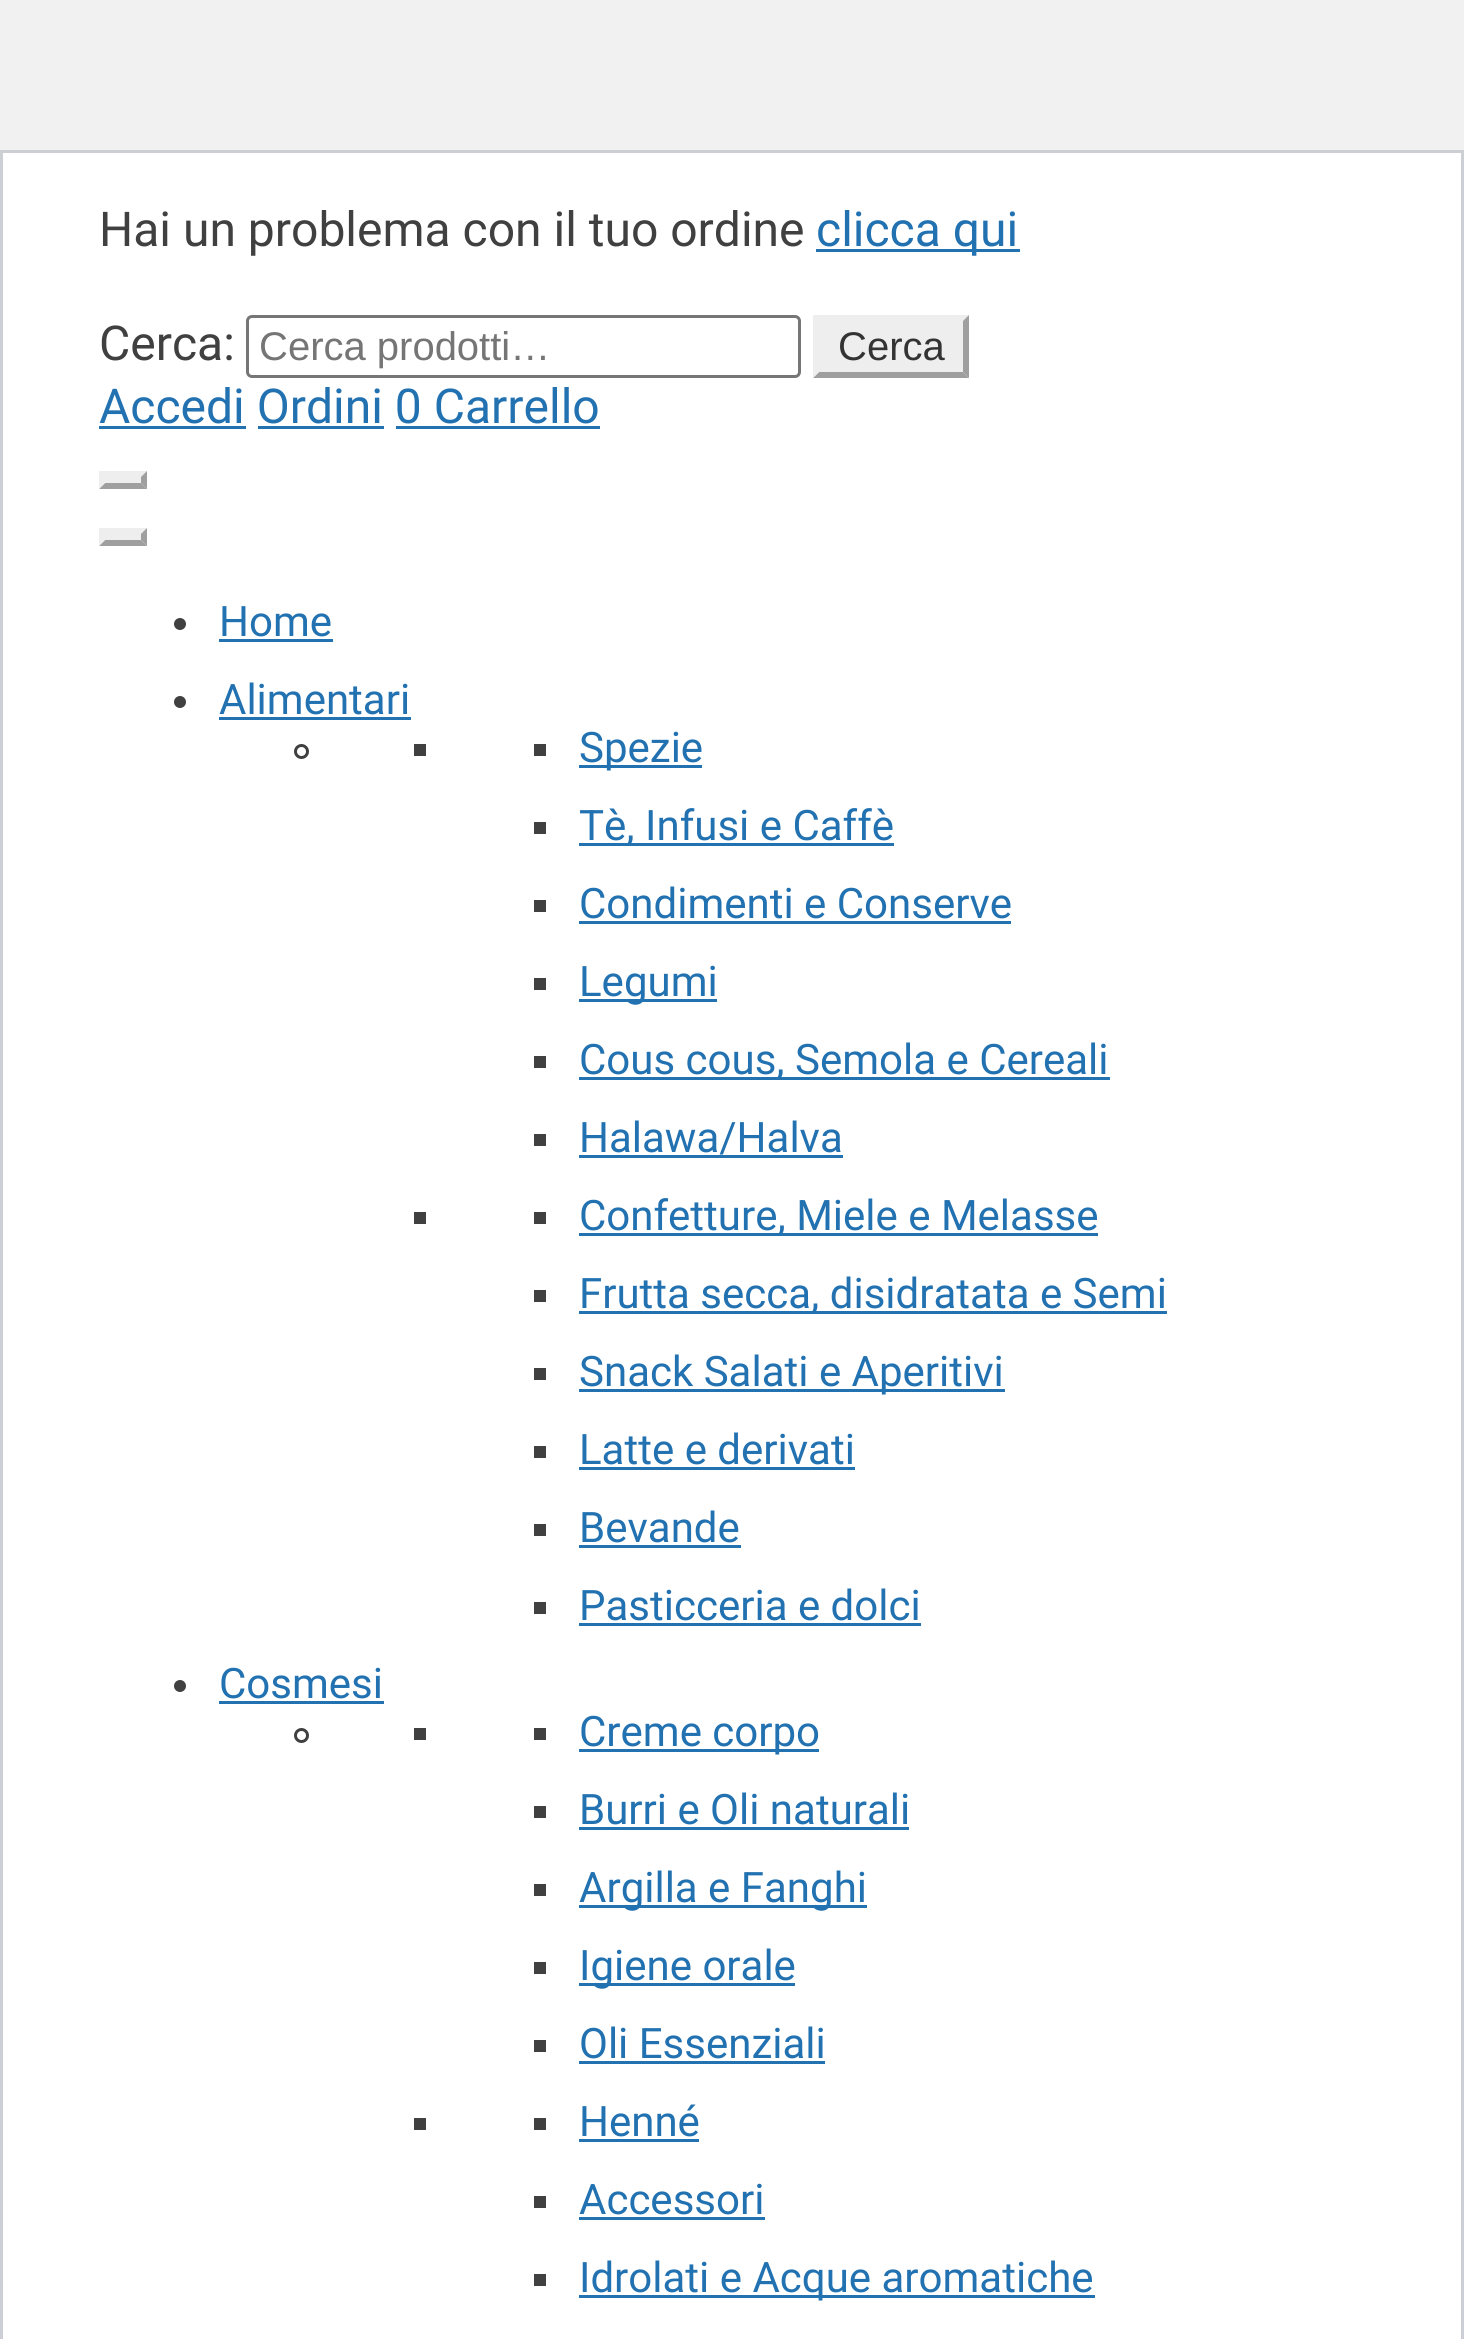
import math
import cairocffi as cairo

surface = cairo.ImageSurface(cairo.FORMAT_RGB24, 1464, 2339)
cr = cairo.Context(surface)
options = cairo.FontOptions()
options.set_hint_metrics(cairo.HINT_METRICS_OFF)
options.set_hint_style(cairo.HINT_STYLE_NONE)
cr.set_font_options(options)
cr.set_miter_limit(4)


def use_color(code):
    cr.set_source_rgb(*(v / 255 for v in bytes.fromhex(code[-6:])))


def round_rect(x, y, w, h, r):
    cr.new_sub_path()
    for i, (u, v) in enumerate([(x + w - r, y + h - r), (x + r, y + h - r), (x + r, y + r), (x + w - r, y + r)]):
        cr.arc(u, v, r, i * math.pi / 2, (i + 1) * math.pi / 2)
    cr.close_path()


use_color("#f1f1f1")
cr.paint()
use_color("#ffffff")
cr.rectangle(1.5, 151.5, 1461, 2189)
cr.fill_preserve()
use_color("#ccd0d4")
cr.set_line_width(3)
cr.stroke()
cr.select_font_face("Roboto")
cr.set_font_size(48)
use_color("#404040")
cr.move_to(99, 246)
cr.show_text("Hai un problema con il tuo ordine")
use_color("#2271b1")
cr.rectangle(816, 249, 204, 3)
cr.fill()
cr.move_to(816, 246)
cr.show_text("clicca qui")
use_color("#404040")
cr.move_to(99, 360)
cr.show_text("Cerca:")
round_rect(247.5, 316.5, 552, 60, 4.5)
use_color("#767676")
cr.stroke()
cr.select_font_face("Liberation Sans")
cr.set_font_size(40)
use_color("#757575")
cr.move_to(259, 360)
cr.show_text("Cerca prodotti…")
use_color("#eeeeee")
cr.rectangle(813, 315, 156, 63)
cr.fill()
use_color("#9f9f9f")
cr.new_path()
cr.move_to(969, 315)
cr.line_to(969, 378)
cr.line_to(963, 372)
cr.line_to(963, 321)
cr.close_path()
cr.fill()
cr.new_path()
cr.move_to(969, 378)
cr.line_to(813, 378)
cr.line_to(819, 372)
cr.line_to(963, 372)
cr.close_path()
cr.fill()
use_color("#eeeeee")
cr.new_path()
cr.move_to(813, 378)
cr.line_to(813, 315)
cr.line_to(819, 321)
cr.line_to(819, 372)
cr.close_path()
cr.fill()
use_color("#333333")
cr.move_to(838, 360)
cr.show_text("Cerca")
cr.select_font_face("Roboto")
cr.set_font_size(48)
use_color("#2271b1")
cr.move_to(99, 423)
cr.show_text("Accedi Ordini 0 Carrello")
cr.rectangle(99, 426, 147, 3)
cr.fill()
cr.rectangle(258, 426, 126, 3)
cr.fill()
cr.rectangle(396, 426, 204, 3)
cr.fill()
use_color("#eeeeee")
cr.rectangle(99, 471, 48, 18)
cr.fill()
use_color("#9f9f9f")
cr.new_path()
cr.move_to(147, 471)
cr.line_to(147, 489)
cr.line_to(141, 483)
cr.line_to(141, 477)
cr.close_path()
cr.fill()
cr.new_path()
cr.move_to(147, 489)
cr.line_to(99, 489)
cr.line_to(105, 483)
cr.line_to(141, 483)
cr.close_path()
cr.fill()
use_color("#eeeeee")
cr.new_path()
cr.move_to(99, 489)
cr.line_to(99, 471)
cr.line_to(105, 477)
cr.line_to(105, 483)
cr.close_path()
cr.fill()
cr.rectangle(99, 528, 48, 18)
cr.fill()
use_color("#9f9f9f")
cr.new_path()
cr.move_to(147, 528)
cr.line_to(147, 546)
cr.line_to(141, 540)
cr.line_to(141, 534)
cr.close_path()
cr.fill()
cr.new_path()
cr.move_to(147, 546)
cr.line_to(99, 546)
cr.line_to(105, 540)
cr.line_to(141, 540)
cr.close_path()
cr.fill()
use_color("#eeeeee")
cr.new_path()
cr.move_to(99, 546)
cr.line_to(99, 528)
cr.line_to(105, 534)
cr.line_to(105, 540)
cr.close_path()
cr.fill()
use_color("#404040")
cr.arc(180, 624, 6, 0, 2 * math.pi)
cr.fill()
cr.set_font_size(42)
use_color("#2271b1")
cr.move_to(219, 636)
cr.show_text("Home")
cr.rectangle(219, 639, 114, 3)
cr.fill()
use_color("#404040")
cr.arc(180, 702, 6, 0, 2 * math.pi)
cr.fill()
use_color("#2271b1")
cr.move_to(219, 714)
cr.show_text("Alimentari")
cr.rectangle(219, 717, 192, 3)
cr.fill()
cr.arc(301.5, 751.5, 6, 0, 2 * math.pi)
use_color("#404040")
cr.stroke()
cr.rectangle(414, 744, 12, 12)
cr.fill()
cr.rectangle(534, 744, 12, 12)
cr.fill()
use_color("#2271b1")
cr.rectangle(579, 765, 123, 3)
cr.fill()
cr.move_to(579, 762)
cr.show_text("Spezie")
use_color("#404040")
cr.rectangle(534, 822, 12, 12)
cr.fill()
use_color("#2271b1")
cr.rectangle(579, 843, 315, 3)
cr.fill()
cr.move_to(579, 840)
cr.show_text("Tè, Infusi e Caffè")
use_color("#404040")
cr.rectangle(534, 900, 12, 12)
cr.fill()
use_color("#2271b1")
cr.move_to(579, 918)
cr.show_text("Condimenti e Conserve")
cr.rectangle(579, 921, 432, 3)
cr.fill()
use_color("#404040")
cr.rectangle(534, 978, 12, 12)
cr.fill()
use_color("#2271b1")
cr.rectangle(579, 999, 138, 3)
cr.fill()
cr.move_to(579, 996)
cr.show_text("Legumi")
use_color("#404040")
cr.rectangle(534, 1056, 12, 12)
cr.fill()
use_color("#2271b1")
cr.rectangle(579, 1077, 531, 3)
cr.fill()
cr.move_to(579, 1074)
cr.show_text("Cous cous, Semola e Cereali")
use_color("#404040")
cr.rectangle(534, 1134, 12, 12)
cr.fill()
use_color("#2271b1")
cr.move_to(579, 1152)
cr.show_text("Halawa/Halva")
cr.rectangle(579, 1155, 264, 3)
cr.fill()
use_color("#404040")
cr.rectangle(414, 1212, 12, 12)
cr.fill()
cr.rectangle(534, 1212, 12, 12)
cr.fill()
use_color("#2271b1")
cr.rectangle(579, 1233, 519, 3)
cr.fill()
cr.move_to(579, 1230)
cr.show_text("Confetture, Miele e Melasse")
use_color("#404040")
cr.rectangle(534, 1290, 12, 12)
cr.fill()
use_color("#2271b1")
cr.rectangle(579, 1311, 588, 3)
cr.fill()
cr.move_to(579, 1308)
cr.show_text("Frutta secca, disidratata e Semi")
use_color("#404040")
cr.rectangle(534, 1368, 12, 12)
cr.fill()
use_color("#2271b1")
cr.rectangle(579, 1389, 426, 3)
cr.fill()
cr.move_to(579, 1386)
cr.show_text("Snack Salati e Aperitivi")
use_color("#404040")
cr.rectangle(534, 1446, 12, 12)
cr.fill()
use_color("#2271b1")
cr.move_to(579, 1464)
cr.show_text("Latte e derivati")
cr.rectangle(579, 1467, 276, 3)
cr.fill()
use_color("#404040")
cr.rectangle(534, 1524, 12, 12)
cr.fill()
use_color("#2271b1")
cr.move_to(579, 1542)
cr.show_text("Bevande")
cr.rectangle(579, 1545, 162, 3)
cr.fill()
use_color("#404040")
cr.rectangle(534, 1602, 12, 12)
cr.fill()
use_color("#2271b1")
cr.move_to(579, 1620)
cr.show_text("Pasticceria e dolci")
cr.rectangle(579, 1623, 342, 3)
cr.fill()
use_color("#404040")
cr.arc(180, 1686, 6, 0, 2 * math.pi)
cr.fill()
use_color("#2271b1")
cr.move_to(219, 1698)
cr.show_text("Cosmesi")
cr.rectangle(219, 1701, 165, 3)
cr.fill()
cr.arc(301.5, 1735.5, 6, 0, 2 * math.pi)
use_color("#404040")
cr.stroke()
cr.rectangle(414, 1728, 12, 12)
cr.fill()
cr.rectangle(534, 1728, 12, 12)
cr.fill()
use_color("#2271b1")
cr.rectangle(579, 1749, 240, 3)
cr.fill()
cr.move_to(579, 1746)
cr.show_text("Creme corpo")
use_color("#404040")
cr.rectangle(534, 1806, 12, 12)
cr.fill()
use_color("#2271b1")
cr.move_to(579, 1824)
cr.show_text("Burri e Oli naturali")
cr.rectangle(579, 1827, 330, 3)
cr.fill()
use_color("#404040")
cr.rectangle(534, 1884, 12, 12)
cr.fill()
use_color("#2271b1")
cr.rectangle(579, 1905, 288, 3)
cr.fill()
cr.move_to(579, 1902)
cr.show_text("Argilla e Fanghi")
use_color("#404040")
cr.rectangle(534, 1962, 12, 12)
cr.fill()
use_color("#2271b1")
cr.rectangle(579, 1983, 216, 3)
cr.fill()
cr.move_to(579, 1980)
cr.show_text("Igiene orale")
use_color("#404040")
cr.rectangle(534, 2040, 12, 12)
cr.fill()
use_color("#2271b1")
cr.move_to(579, 2058)
cr.show_text("Oli Essenziali")
cr.rectangle(579, 2061, 246, 3)
cr.fill()
use_color("#404040")
cr.rectangle(414, 2118, 12, 12)
cr.fill()
cr.rectangle(534, 2118, 12, 12)
cr.fill()
use_color("#2271b1")
cr.move_to(579, 2136)
cr.show_text("Henné")
cr.rectangle(579, 2139, 120, 3)
cr.fill()
use_color("#404040")
cr.rectangle(534, 2196, 12, 12)
cr.fill()
use_color("#2271b1")
cr.move_to(579, 2214)
cr.show_text("Accessori")
cr.rectangle(579, 2217, 186, 3)
cr.fill()
use_color("#404040")
cr.rectangle(534, 2274, 12, 12)
cr.fill()
use_color("#2271b1")
cr.rectangle(579, 2295, 516, 3)
cr.fill()
cr.move_to(579, 2292)
cr.show_text("Idrolati e Acque aromatiche")
surface.write_to_png("result.png")
